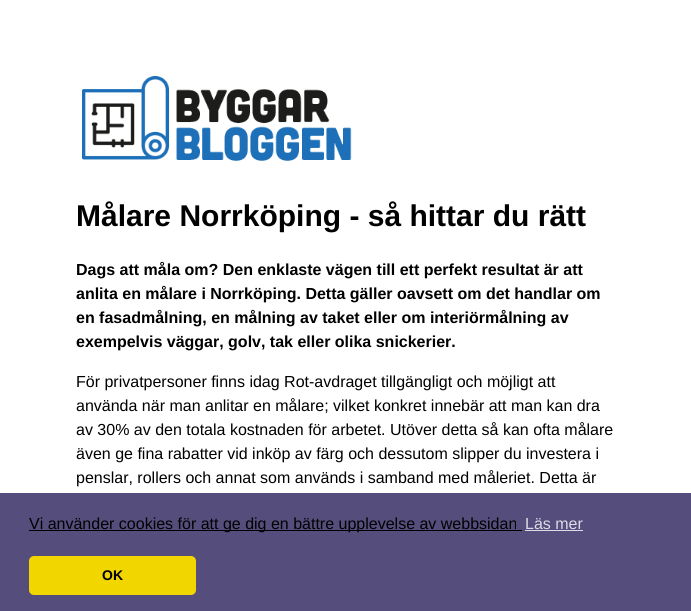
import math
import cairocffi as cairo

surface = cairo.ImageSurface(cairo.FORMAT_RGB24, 691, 611)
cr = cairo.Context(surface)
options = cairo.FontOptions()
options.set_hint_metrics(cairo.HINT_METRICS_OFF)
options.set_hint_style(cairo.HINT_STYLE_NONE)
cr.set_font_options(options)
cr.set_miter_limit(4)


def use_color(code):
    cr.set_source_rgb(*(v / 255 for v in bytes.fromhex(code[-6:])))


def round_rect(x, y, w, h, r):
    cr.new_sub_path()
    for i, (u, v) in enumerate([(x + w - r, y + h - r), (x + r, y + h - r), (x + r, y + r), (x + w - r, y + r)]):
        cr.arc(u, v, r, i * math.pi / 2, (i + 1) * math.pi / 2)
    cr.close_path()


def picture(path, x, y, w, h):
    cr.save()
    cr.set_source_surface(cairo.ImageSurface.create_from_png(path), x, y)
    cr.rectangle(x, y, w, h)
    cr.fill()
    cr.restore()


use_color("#ffffff")
cr.paint()
picture("img1.png", 82, 76, 270, 85)
cr.select_font_face("Liberation Sans", cairo.FONT_SLANT_NORMAL, cairo.FONT_WEIGHT_BOLD)
cr.set_font_size(30)
use_color("#000000")
cr.move_to(76, 226)
cr.show_text("Målare Norrköping - så hittar du rätt")
cr.set_font_size(16)
cr.move_to(76, 275)
cr.show_text("Dags att måla om? Den enklaste vägen till ett perfekt resultat är att")
cr.move_to(76, 299)
cr.show_text("anlita en målare i Norrköping. Detta gäller oavsett om det handlar om")
cr.move_to(76, 323)
cr.show_text("en fasadmålning, en målning av taket eller om interiörmålning av")
cr.move_to(76, 347)
cr.show_text("exempelvis väggar, golv, tak eller olika snickerier.")
cr.select_font_face("Liberation Sans")
cr.move_to(76, 387)
cr.show_text("För privatpersoner finns idag Rot-avdraget tillgängligt och möjligt att")
cr.move_to(76, 411)
cr.show_text("använda när man anlitar en målare; vilket konkret innebär att man kan dra")
cr.move_to(76, 435)
cr.show_text("av 30% av den totala kostnaden för arbetet. Utöver detta så kan ofta målare")
cr.move_to(76, 459)
cr.show_text("även ge fina rabatter vid inköp av färg och dessutom slipper du investera i")
cr.move_to(76, 483)
cr.show_text("penslar, rollers och annat som används i samband med måleriet. Detta är")
use_color("#554d7c")
cr.rectangle(0, 493, 691, 118)
cr.fill()
use_color("#000000")
cr.rectangle(29, 530, 493, 1)
cr.fill()
cr.move_to(29, 529)
cr.show_text("Vi använder cookies för att ge dig en bättre upplevelse av webbsidan")
use_color("#dddbe5")
cr.move_to(525, 529)
cr.show_text("Läs mer")
cr.rectangle(525, 530, 58, 1)
cr.fill()
use_color("#f1d600")
round_rect(29, 556, 167, 39, 5)
cr.fill()
cr.select_font_face("Liberation Sans", cairo.FONT_SLANT_NORMAL, cairo.FONT_WEIGHT_BOLD)
cr.set_font_size(14)
use_color("#000000")
cr.move_to(102, 580)
cr.show_text("OK")
surface.write_to_png("result.png")
